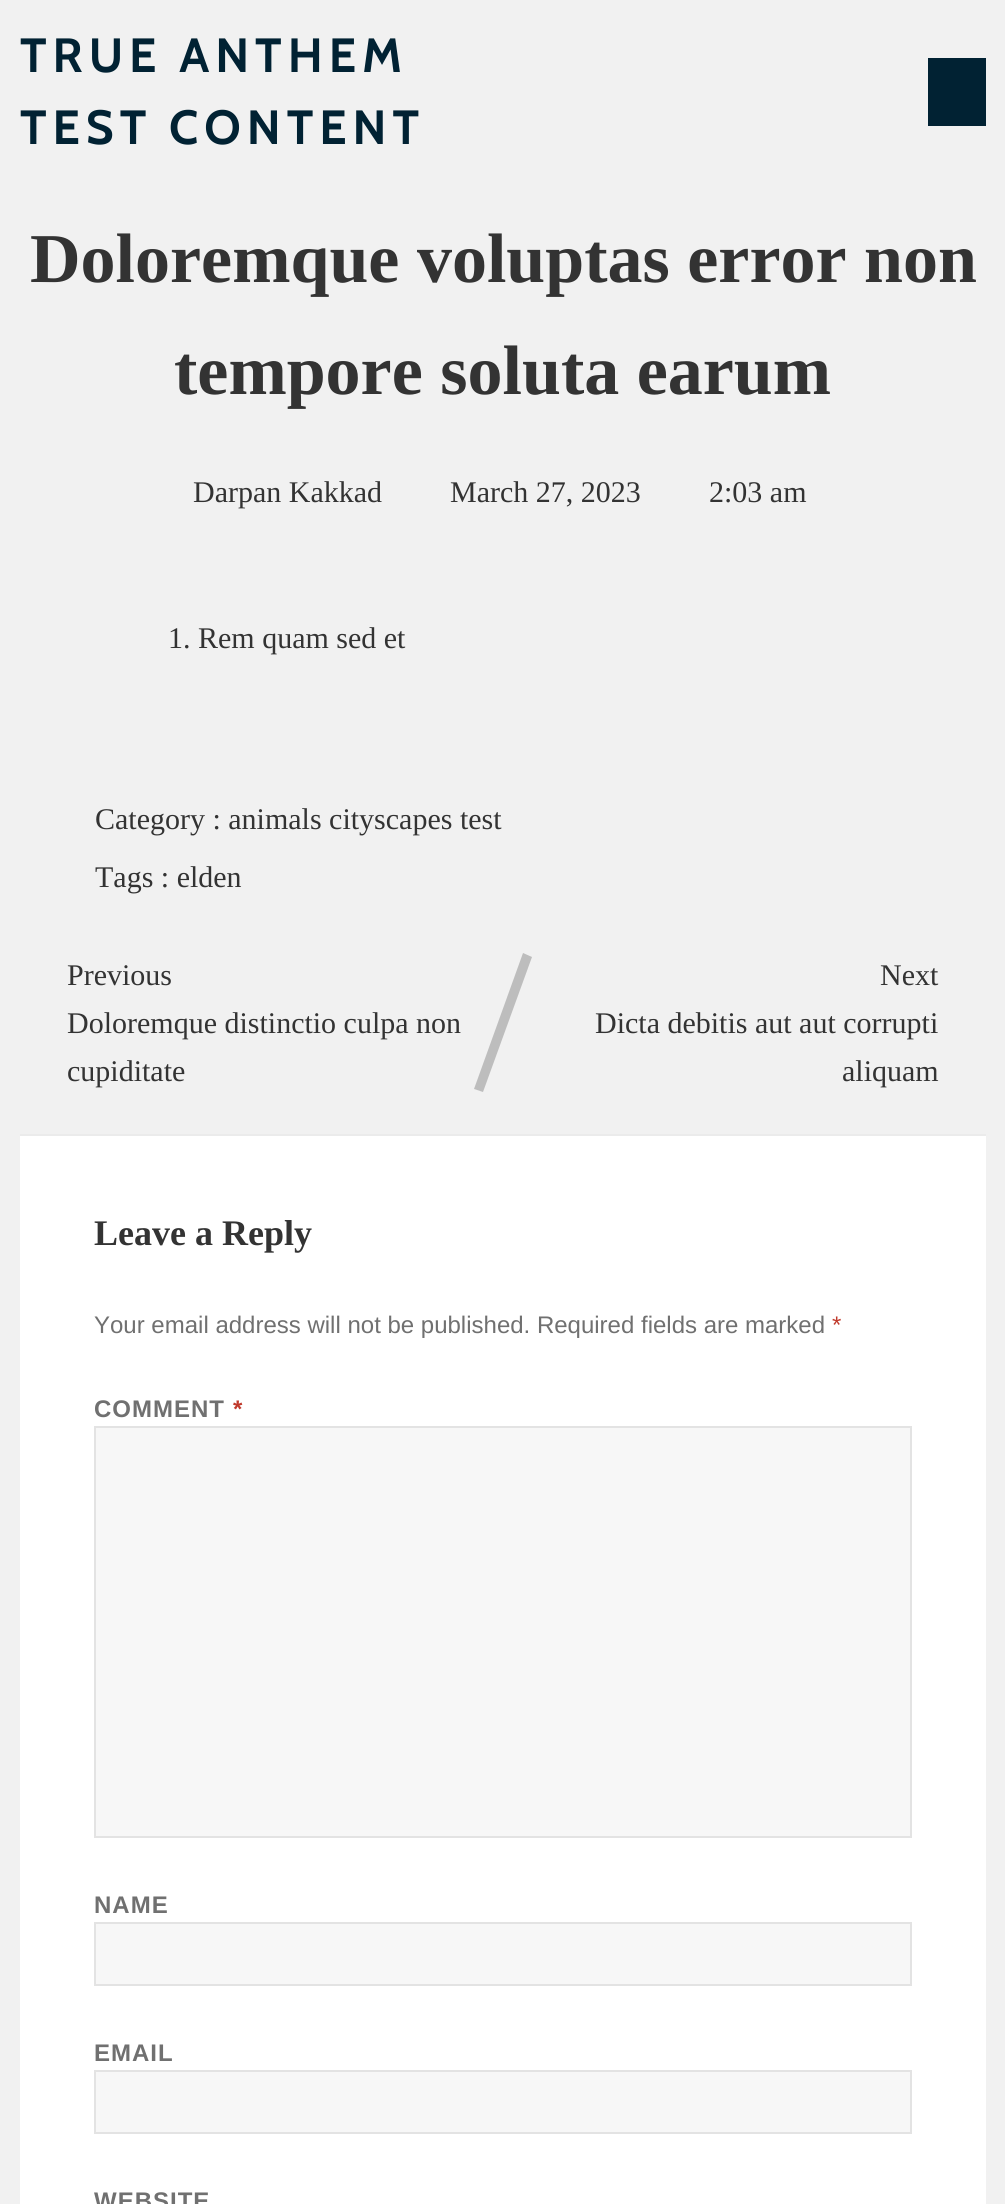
import math
import cairocffi as cairo

surface = cairo.ImageSurface(cairo.FORMAT_RGB24, 1005, 2204)
cr = cairo.Context(surface)
options = cairo.FontOptions()
options.set_hint_metrics(cairo.HINT_METRICS_OFF)
options.set_hint_style(cairo.HINT_STYLE_NONE)
cr.set_font_options(options)
cr.set_miter_limit(4)


def use_color(code):
    cr.set_source_rgb(*(v / 255 for v in bytes.fromhex(code[-6:])))


def spaced_text(x, y, s, letter, word):
    cr.move_to(x, y)
    for ch in s:
        cr.show_text(ch)
        cr.rel_move_to(letter + word * (ch == ' '), 0)


use_color("#f1f1f1")
cr.paint()
cr.select_font_face("Cabin", cairo.FONT_SLANT_NORMAL, cairo.FONT_WEIGHT_BOLD)
cr.set_font_size(48)
use_color("#012233")
spaced_text(20, 72, "TRUE ANTHEM", 6, 0)
spaced_text(20, 144, "TEST CONTENT", 6, 0)
cr.rectangle(928, 58, 58, 68)
cr.fill()
cr.select_font_face("Liberation Serif", cairo.FONT_SLANT_NORMAL, cairo.FONT_WEIGHT_BOLD)
cr.set_font_size(70)
use_color("#333333")
cr.move_to(30, 282)
cr.show_text("Doloremque voluptas error non")
cr.move_to(174, 394)
cr.show_text("tempore soluta earum")
cr.select_font_face("Liberation Serif")
cr.set_font_size(30)
cr.move_to(193, 502)
cr.show_text("Darpan Kakkad")
cr.move_to(450, 502)
cr.show_text("March 27, 2023")
cr.move_to(709, 502)
cr.show_text("2:03 am")
cr.move_to(168, 648)
cr.show_text("1. Rem quam sed et")
cr.move_to(95, 829)
cr.show_text("Category : animals cityscapes test")
cr.move_to(95, 887)
cr.show_text("Tags : elden")
cr.move_to(67, 985)
cr.show_text("Previous")
cr.move_to(67, 1033)
cr.show_text("Doloremque distinctio culpa non")
cr.move_to(67, 1081)
cr.show_text("cupiditate")
use_color("#bdbdbd")
cr.new_path()
cr.move_to(523, 953)
cr.line_to(532, 957)
cr.line_to(483, 1092)
cr.line_to(474, 1089)
cr.close_path()
cr.fill()
use_color("#333333")
cr.move_to(880, 985)
cr.show_text("Next")
cr.move_to(595, 1033)
cr.show_text("Dicta debitis aut aut corrupti")
cr.move_to(842, 1081)
cr.show_text("aliquam")
use_color("#ffffff")
cr.rectangle(20, 1136, 966, 1068)
cr.fill()
use_color("#ebebeb")
cr.rectangle(20, 1134, 966, 2)
cr.fill()
cr.select_font_face("Liberation Serif", cairo.FONT_SLANT_NORMAL, cairo.FONT_WEIGHT_BOLD)
cr.set_font_size(36)
use_color("#333333")
cr.move_to(94, 1245)
cr.show_text("Leave a Reply")
cr.select_font_face("Liberation Sans")
cr.set_font_size(24)
use_color("#707070")
cr.move_to(94, 1333)
cr.show_text("Your email address will not be published. Required fields are marked")
use_color("#c0392b")
cr.move_to(832, 1333)
cr.show_text("*")
cr.select_font_face("Liberation Sans", cairo.FONT_SLANT_NORMAL, cairo.FONT_WEIGHT_BOLD)
use_color("#707070")
spaced_text(94, 1417, "COMMENT", 1, 0)
use_color("#c0392b")
spaced_text(233, 1417, "*", 1, 0)
use_color("#f7f7f7")
cr.rectangle(95, 1427, 816, 410)
cr.fill_preserve()
use_color("#e3e3e3")
cr.stroke()
use_color("#707070")
spaced_text(94, 1913, "NAME", 1, 0)
use_color("#f7f7f7")
cr.rectangle(95, 1923, 816, 62)
cr.fill_preserve()
use_color("#e3e3e3")
cr.stroke()
use_color("#707070")
spaced_text(94, 2061, "EMAIL", 1, 0)
use_color("#f7f7f7")
cr.rectangle(95, 2071, 816, 62)
cr.fill_preserve()
use_color("#e3e3e3")
cr.stroke()
use_color("#707070")
spaced_text(94, 2209, "WEBSITE", 1, 0)
surface.write_to_png("result.png")
